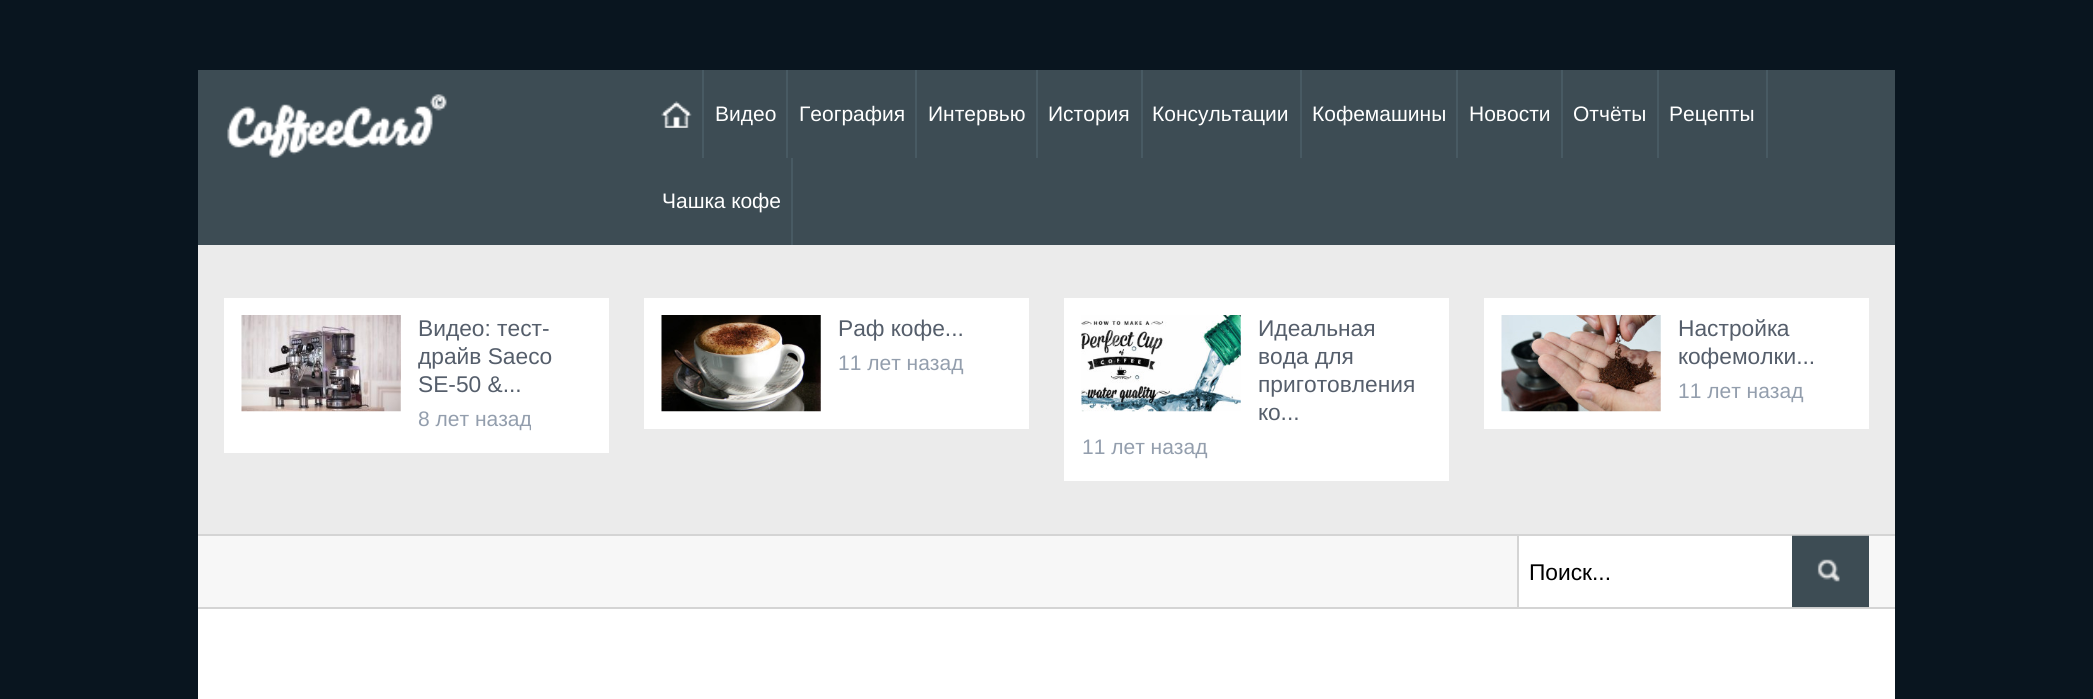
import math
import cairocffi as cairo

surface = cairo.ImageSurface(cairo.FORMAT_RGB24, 2093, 699)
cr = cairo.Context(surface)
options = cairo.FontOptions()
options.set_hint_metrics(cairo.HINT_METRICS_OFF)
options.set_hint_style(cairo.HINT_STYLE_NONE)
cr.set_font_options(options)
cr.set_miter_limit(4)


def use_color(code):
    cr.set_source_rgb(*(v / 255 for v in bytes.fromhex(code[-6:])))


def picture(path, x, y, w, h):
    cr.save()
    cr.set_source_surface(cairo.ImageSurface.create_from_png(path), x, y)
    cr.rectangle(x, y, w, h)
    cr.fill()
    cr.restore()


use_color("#09151f")
cr.paint()
use_color("#3d4c54")
cr.rectangle(198, 70, 1697, 175)
cr.fill()
picture("img1.png", 227, 94, 220, 64)
use_color("#485a63")
cr.rectangle(702, 70, 2, 88)
cr.fill()
picture("img2.png", 661, 101, 31, 27)
cr.rectangle(786, 70, 2, 88)
cr.fill()
cr.select_font_face("Liberation Sans")
cr.set_font_size(21)
use_color("#ffffff")
cr.move_to(715, 121)
cr.show_text("Видео")
use_color("#485a63")
cr.rectangle(915, 70, 2, 88)
cr.fill()
use_color("#ffffff")
cr.move_to(799, 121)
cr.show_text("География")
use_color("#485a63")
cr.rectangle(1036, 70, 2, 88)
cr.fill()
use_color("#ffffff")
cr.move_to(928, 121)
cr.show_text("Интервью")
use_color("#485a63")
cr.rectangle(1141, 70, 2, 88)
cr.fill()
use_color("#ffffff")
cr.move_to(1048, 121)
cr.show_text("История")
use_color("#485a63")
cr.rectangle(1300, 70, 2, 88)
cr.fill()
use_color("#ffffff")
cr.move_to(1152, 121)
cr.show_text("Консультации")
use_color("#485a63")
cr.rectangle(1456, 70, 2, 88)
cr.fill()
use_color("#ffffff")
cr.move_to(1312, 121)
cr.show_text("Кофемашины")
use_color("#485a63")
cr.rectangle(1561, 70, 2, 88)
cr.fill()
use_color("#ffffff")
cr.move_to(1469, 121)
cr.show_text("Новости")
use_color("#485a63")
cr.rectangle(1657, 70, 2, 88)
cr.fill()
use_color("#ffffff")
cr.move_to(1573, 121)
cr.show_text("Отчёты")
use_color("#485a63")
cr.rectangle(1766, 70, 2, 88)
cr.fill()
use_color("#ffffff")
cr.move_to(1669, 121)
cr.show_text("Рецепты")
use_color("#485a63")
cr.rectangle(791, 158, 2, 87)
cr.fill()
use_color("#ffffff")
cr.move_to(662, 208)
cr.show_text("Чашка кофе")
use_color("#ebebeb")
cr.rectangle(198, 245, 1697, 289)
cr.fill()
use_color("#ffffff")
cr.rectangle(224, 298, 385, 155)
cr.fill()
picture("img3.png", 241, 315, 160, 97)
cr.set_font_size(22.75)
use_color("#555e6b")
cr.move_to(418, 336)
cr.show_text("Видео: тест-")
cr.move_to(418, 364)
cr.show_text("драйв Saeco")
cr.move_to(418, 392)
cr.show_text("SE-50 &...")
cr.set_font_size(21)
use_color("#939ead")
cr.move_to(418, 426)
cr.show_text("8 лет назад")
use_color("#ffffff")
cr.rectangle(644, 298, 385, 131)
cr.fill()
picture("img4.png", 661, 315, 160, 97)
cr.set_font_size(22.75)
use_color("#555e6b")
cr.move_to(838, 336)
cr.show_text("Раф кофе...")
cr.set_font_size(21)
use_color("#939ead")
cr.move_to(838, 370)
cr.show_text("11 лет назад")
use_color("#ffffff")
cr.rectangle(1064, 298, 385, 183)
cr.fill()
picture("img5.png", 1081, 315, 160, 97)
cr.set_font_size(22.75)
use_color("#555e6b")
cr.move_to(1258, 336)
cr.show_text("Идеальная")
cr.move_to(1258, 364)
cr.show_text("вода для")
cr.move_to(1258, 392)
cr.show_text("приготовления")
cr.move_to(1258, 420)
cr.show_text("ко...")
cr.set_font_size(21)
use_color("#939ead")
cr.move_to(1082, 454)
cr.show_text("11 лет назад")
use_color("#ffffff")
cr.rectangle(1484, 298, 385, 131)
cr.fill()
picture("img6.png", 1501, 315, 160, 97)
cr.set_font_size(22.75)
use_color("#555e6b")
cr.move_to(1678, 336)
cr.show_text("Настройка")
cr.move_to(1678, 364)
cr.show_text("кофемолки...")
cr.set_font_size(21)
use_color("#939ead")
cr.move_to(1678, 398)
cr.show_text("11 лет назад")
use_color("#f7f7f7")
cr.rectangle(198, 536, 1697, 71)
cr.fill()
use_color("#d4d4d4")
cr.rectangle(198, 534, 1697, 2)
cr.fill()
cr.rectangle(198, 607, 1697, 2)
cr.fill()
use_color("#ffffff")
cr.rectangle(1519, 536, 273, 71)
cr.fill()
use_color("#d4d4d4")
cr.rectangle(1517, 536, 2, 71)
cr.fill()
cr.set_font_size(22.75)
use_color("#000000")
cr.move_to(1529, 580)
cr.show_text("Поиск...")
picture("img7.png", 1792, 535, 77, 73)
use_color("#ffffff")
cr.rectangle(198, 609, 1697, 90)
cr.fill()
surface.write_to_png("result.png")
